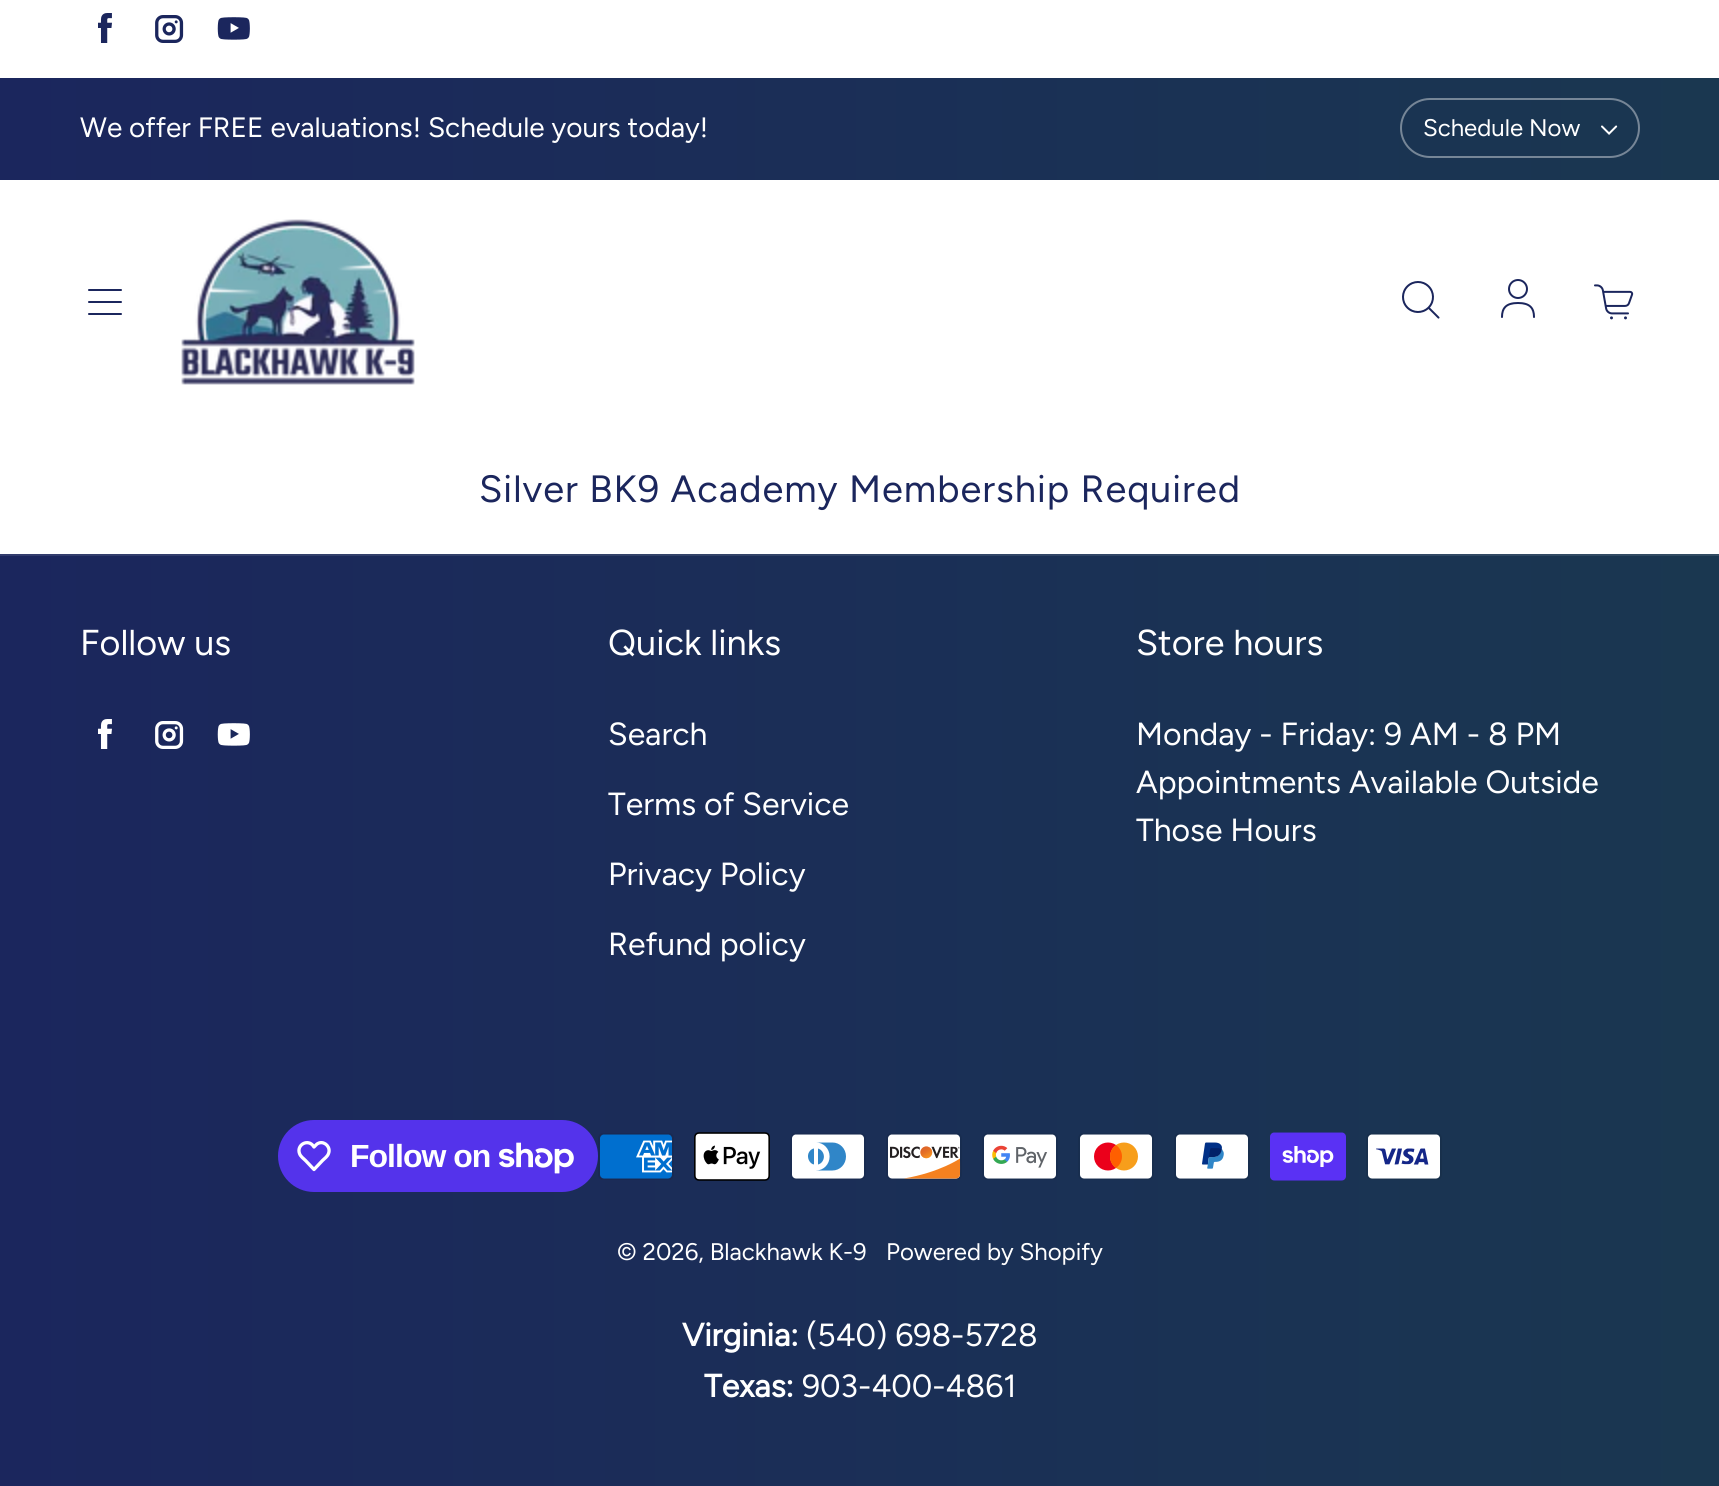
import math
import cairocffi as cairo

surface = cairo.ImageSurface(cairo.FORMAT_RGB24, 1719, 1486)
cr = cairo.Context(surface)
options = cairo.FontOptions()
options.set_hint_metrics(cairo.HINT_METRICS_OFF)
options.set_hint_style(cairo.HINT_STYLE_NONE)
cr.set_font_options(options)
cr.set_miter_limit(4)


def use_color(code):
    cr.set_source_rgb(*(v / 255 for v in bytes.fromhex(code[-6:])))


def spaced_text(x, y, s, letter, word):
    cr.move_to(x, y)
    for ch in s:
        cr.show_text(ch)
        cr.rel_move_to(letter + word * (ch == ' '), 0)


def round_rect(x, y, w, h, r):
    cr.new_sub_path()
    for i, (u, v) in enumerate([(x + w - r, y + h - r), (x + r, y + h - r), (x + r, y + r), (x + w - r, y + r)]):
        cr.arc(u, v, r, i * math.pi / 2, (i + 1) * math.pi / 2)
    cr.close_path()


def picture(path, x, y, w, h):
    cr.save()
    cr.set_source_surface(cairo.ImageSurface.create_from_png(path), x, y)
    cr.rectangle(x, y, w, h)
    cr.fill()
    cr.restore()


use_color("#ffffff")
cr.paint()
picture("img1.png", 98, 13, 14, 30)
picture("img2.png", 155, 15, 29, 28)
picture("img3.png", 217, 17, 33, 23)
gradient = cairo.LinearGradient(0, 743, 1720, 743)
gradient.add_color_stop_rgba(0, 0.106, 0.149, 0.365, 1)
gradient.add_color_stop_rgba(1, 0.102, 0.216, 0.314, 1)
cr.set_source(gradient)
cr.rectangle(0, 78, 1719, 102)
cr.fill()
cr.select_font_face("Figtree")
cr.set_font_size(28)
use_color("#ffffff")
cr.move_to(80, 137)
cr.show_text("We offer FREE evaluations! Schedule yours today!")
round_rect(1401, 99, 238, 58, 29)
use_color("#768697")
cr.stroke()
cr.set_font_size(24)
use_color("#ffffff")
cr.move_to(1423, 136)
cr.show_text("Schedule Now")
picture("img4.png", 1601, 125, 17, 10)
picture("img5.png", 88, 289, 34, 26)
picture("img6.png", 181, 219, 234, 166)
picture("img7.png", 1402, 281, 38, 38)
picture("img8.png", 1501, 279, 34, 39)
picture("img9.png", 1594, 284, 40, 36)
cr.set_font_size(38)
use_color("#1b265d")
spaced_text(479, 502, "Silver BK9 Academy Membership Required", 1, 0)
gradient = cairo.LinearGradient(0, 1054, 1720, 1054)
gradient.add_color_stop_rgba(0, 0.106, 0.149, 0.365, 1)
gradient.add_color_stop_rgba(1, 0.102, 0.216, 0.314, 1)
cr.set_source(gradient)
cr.rectangle(0, 556, 1719, 930)
cr.fill()
gradient = cairo.LinearGradient(0, 1054, 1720, 1054)
gradient.add_color_stop_rgba(0, 0.196, 0.235, 0.427, 1)
gradient.add_color_stop_rgba(1, 0.192, 0.294, 0.384, 1)
cr.set_source(gradient)
cr.rectangle(0, 554, 1719, 2)
cr.fill()
cr.set_font_size(36)
use_color("#ffffff")
cr.move_to(80, 655)
cr.show_text("Follow us")
picture("img10.png", 98, 719, 14, 30)
picture("img11.png", 155, 721, 29, 28)
picture("img12.png", 217, 723, 33, 23)
cr.move_to(608, 655)
cr.show_text("Quick links")
cr.set_font_size(32)
cr.move_to(608, 745)
cr.show_text("Search")
cr.move_to(608, 815)
cr.show_text("Terms of Service")
cr.move_to(608, 885)
cr.show_text("Privacy Policy")
cr.move_to(608, 955)
cr.show_text("Refund policy")
cr.set_font_size(36)
cr.move_to(1136, 655)
cr.show_text("Store hours")
cr.set_font_size(32)
cr.move_to(1136, 745)
cr.show_text("Monday - Friday: 9 AM - 8 PM")
cr.move_to(1136, 793)
cr.show_text("Appointments Available Outside")
cr.move_to(1136, 841)
cr.show_text("Those Hours")
use_color("#5433eb")
round_rect(278, 1120, 320, 72, 36)
cr.fill()
cr.new_path()
cr.move_to(312.5, 1145)
cr.line_to(314, 1147)
cr.curve_to(315.5, 1145.5, 317, 1143.5, 319, 1143)
cr.curve_to(325, 1141, 331, 1147.5, 328.5, 1153.5)
cr.curve_to(327.5, 1156.5, 324.5, 1158.5, 322.5, 1160.5)
cr.line_to(314, 1169.5)
cr.line_to(305.5, 1160.5)
cr.curve_to(303.5, 1158.5, 300.5, 1156.5, 299.5, 1153.5)
cr.curve_to(296.5, 1145.5, 306.5, 1139, 312.5, 1145)
cr.close_path()
use_color("#ffffff")
cr.set_line_width(3.3)
cr.set_line_join(cairo.LINE_JOIN_ROUND)
cr.stroke()
cr.select_font_face("Liberation Sans", cairo.FONT_SLANT_NORMAL, cairo.FONT_WEIGHT_BOLD)
spaced_text(350, 1167, "Follow on", -1, 0)
picture("img13.png", 499, 1142, 75, 32)
picture("img14.png", 598, 1133, 76, 47)
picture("img15.png", 694, 1132, 76, 49)
picture("img16.png", 790, 1133, 76, 47)
picture("img17.png", 886, 1133, 76, 47)
picture("img18.png", 982, 1133, 76, 47)
picture("img19.png", 1078, 1133, 76, 47)
picture("img20.png", 1174, 1133, 76, 47)
picture("img21.png", 1270, 1132, 76, 49)
picture("img22.png", 1366, 1133, 76, 47)
cr.select_font_face("Figtree")
cr.set_font_size(24)
cr.move_to(617, 1260)
cr.show_text("© 2026, Blackhawk K-9")
cr.move_to(886, 1260)
cr.show_text("Powered by Shopify")
cr.select_font_face("Figtree", cairo.FONT_SLANT_NORMAL, cairo.FONT_WEIGHT_BOLD)
cr.set_font_size(32)
cr.move_to(682, 1346)
cr.show_text("Virginia:")
cr.select_font_face("Figtree")
cr.move_to(806, 1346)
cr.show_text("(540) 698-5728")
cr.select_font_face("Figtree", cairo.FONT_SLANT_NORMAL, cairo.FONT_WEIGHT_BOLD)
cr.move_to(704, 1397)
cr.show_text("Texas:")
cr.select_font_face("Figtree")
cr.move_to(802, 1397)
cr.show_text("903-400-4861")
surface.write_to_png("result.png")
